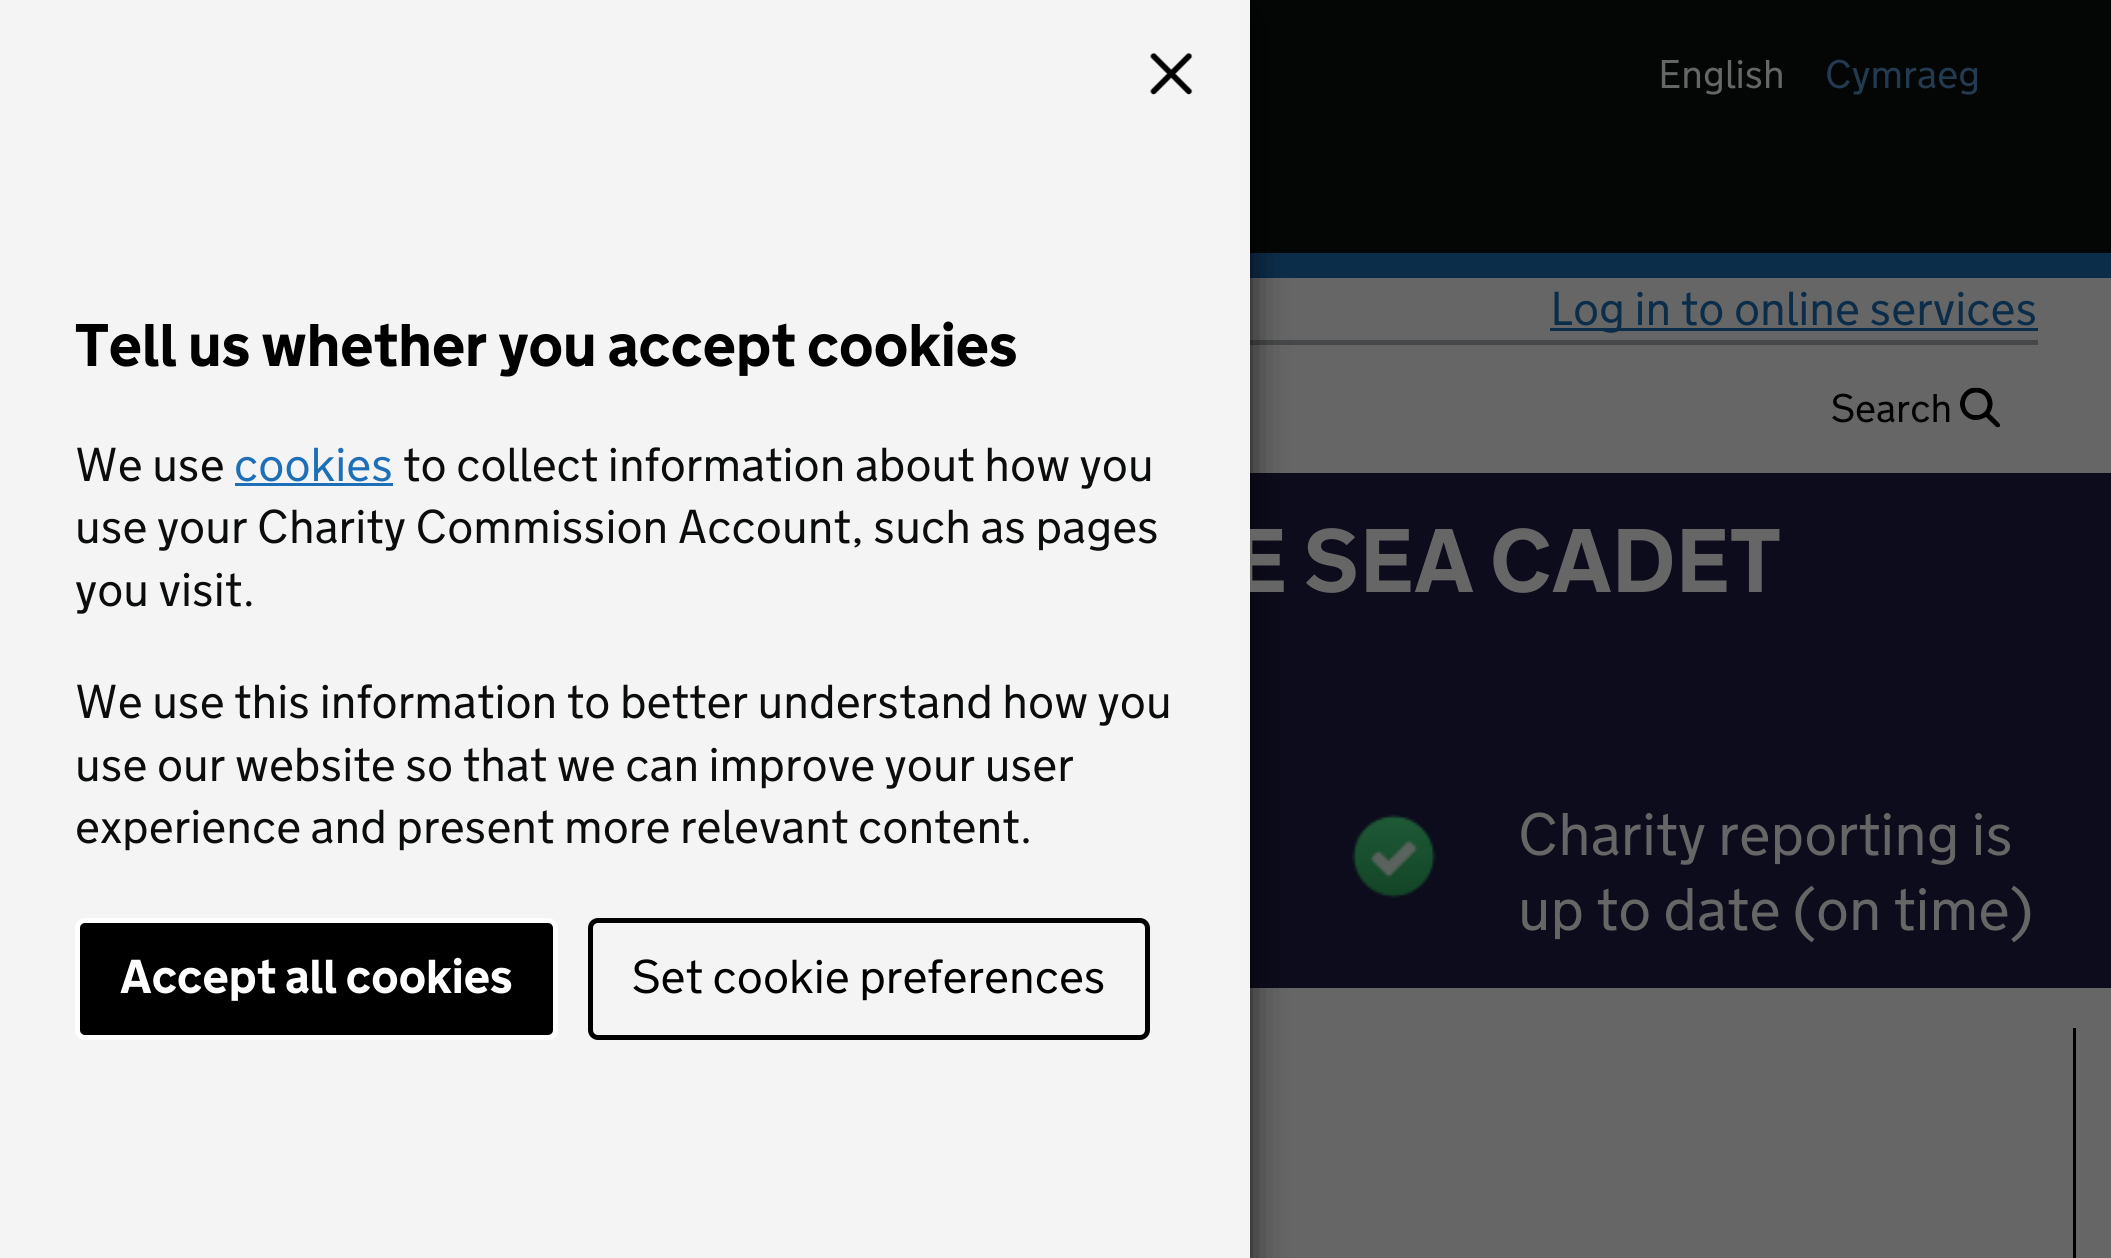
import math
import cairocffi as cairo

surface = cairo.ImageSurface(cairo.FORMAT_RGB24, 2111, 1258)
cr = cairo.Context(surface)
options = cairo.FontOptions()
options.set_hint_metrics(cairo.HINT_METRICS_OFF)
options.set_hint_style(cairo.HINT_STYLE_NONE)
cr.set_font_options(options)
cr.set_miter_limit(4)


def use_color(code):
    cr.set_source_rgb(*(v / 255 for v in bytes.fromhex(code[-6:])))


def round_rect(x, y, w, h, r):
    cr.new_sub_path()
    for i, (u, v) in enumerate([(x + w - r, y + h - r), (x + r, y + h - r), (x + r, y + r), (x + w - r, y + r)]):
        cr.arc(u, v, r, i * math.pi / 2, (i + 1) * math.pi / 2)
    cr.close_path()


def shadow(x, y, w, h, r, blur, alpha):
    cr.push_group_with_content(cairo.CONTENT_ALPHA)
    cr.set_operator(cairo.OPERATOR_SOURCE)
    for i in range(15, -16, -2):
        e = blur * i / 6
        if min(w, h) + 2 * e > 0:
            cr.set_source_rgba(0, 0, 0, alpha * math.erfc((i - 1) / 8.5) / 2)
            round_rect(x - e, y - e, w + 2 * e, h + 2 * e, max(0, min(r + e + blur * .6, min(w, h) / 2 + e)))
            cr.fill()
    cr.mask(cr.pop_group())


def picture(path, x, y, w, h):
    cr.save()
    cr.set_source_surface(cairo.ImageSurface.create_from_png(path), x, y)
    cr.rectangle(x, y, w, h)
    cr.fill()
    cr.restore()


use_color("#666666")
cr.paint()
use_color("#040505")
cr.rectangle(1250, 0, 861, 253)
cr.fill()
use_color("#0c2d4a")
cr.rectangle(1250, 253, 861, 25)
cr.fill()
cr.select_font_face("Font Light")
cr.set_font_size(40)
use_color("#666666")
cr.move_to(1658, 88)
cr.show_text("English")
use_color("#223b51")
cr.move_to(1825, 88)
cr.show_text("Cymraeg")
use_color("#474849")
cr.rectangle(1250, 340, 788, 5)
cr.fill()
use_color("#0c2d4a")
cr.rectangle(1550, 328, 488, 3)
cr.fill()
cr.set_font_size(47.5)
cr.move_to(1550, 325)
cr.show_text("Log in to online services")
use_color("#0d0c1c")
cr.rectangle(1250, 473, 861, 515)
cr.fill()
use_color("#000000")
shadow(8, 20, 1235, 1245, 0, 20, 1)
cr.select_font_face("Font", cairo.FONT_SLANT_NORMAL, cairo.FONT_WEIGHT_BOLD)
cr.set_font_size(90)
use_color("#666666")
cr.move_to(1233, 592)
cr.show_text("E SEA CADET")
use_color("#f4f4f4")
cr.rectangle(0, 0, 1250, 1258)
cr.fill()
picture("img1.png", 1150, 53, 43, 42)
cr.set_font_size(60)
use_color("#000000")
cr.move_to(75, 366)
cr.show_text("Tell us whether you accept cookies")
cr.select_font_face("Font Light")
cr.set_font_size(47.5)
use_color("#0b0c0c")
cr.move_to(75, 481)
cr.show_text("We use")
use_color("#1d70b8")
cr.move_to(234, 481)
cr.show_text("cookies")
cr.rectangle(235, 483, 158, 3)
cr.fill()
use_color("#0b0c0c")
cr.move_to(403, 481)
cr.show_text("to collect information about how you")
cr.move_to(75, 543)
cr.show_text("use your Charity Commission Account, such as pages")
cr.move_to(75, 606)
cr.show_text("you visit.")
cr.move_to(75, 718)
cr.show_text("We use this information to better understand how you")
cr.move_to(75, 781)
cr.show_text("use our website so that we can improve your user")
cr.move_to(75, 843)
cr.show_text("experience and present more relevant content.")
use_color("#000000")
round_rect(77.5, 920.5, 478, 117, 7.5)
cr.fill_preserve()
use_color("#ffffff")
cr.set_line_width(5)
cr.stroke()
cr.select_font_face("Font", cairo.FONT_SLANT_NORMAL, cairo.FONT_WEIGHT_BOLD)
cr.move_to(120, 993)
cr.show_text("Accept all cookies")
round_rect(590.5, 920.5, 557, 117, 7.5)
use_color("#000000")
cr.stroke()
cr.select_font_face("Font Light")
cr.move_to(632, 993)
cr.show_text("Set cookie preferences")
picture("img2.png", 1352, 814, 84, 85)
cr.set_font_size(60)
use_color("#666666")
cr.move_to(1518, 855)
cr.show_text("Charity reporting is")
cr.move_to(1518, 930)
cr.show_text("up to date (on time)")
use_color("#000000")
cr.rectangle(2073, 1028, 3, 230)
cr.fill()
cr.set_font_size(40)
cr.move_to(1831, 422)
cr.show_text("Search")
picture("img3.png", 1960, 387, 40, 41)
surface.write_to_png("result.png")
